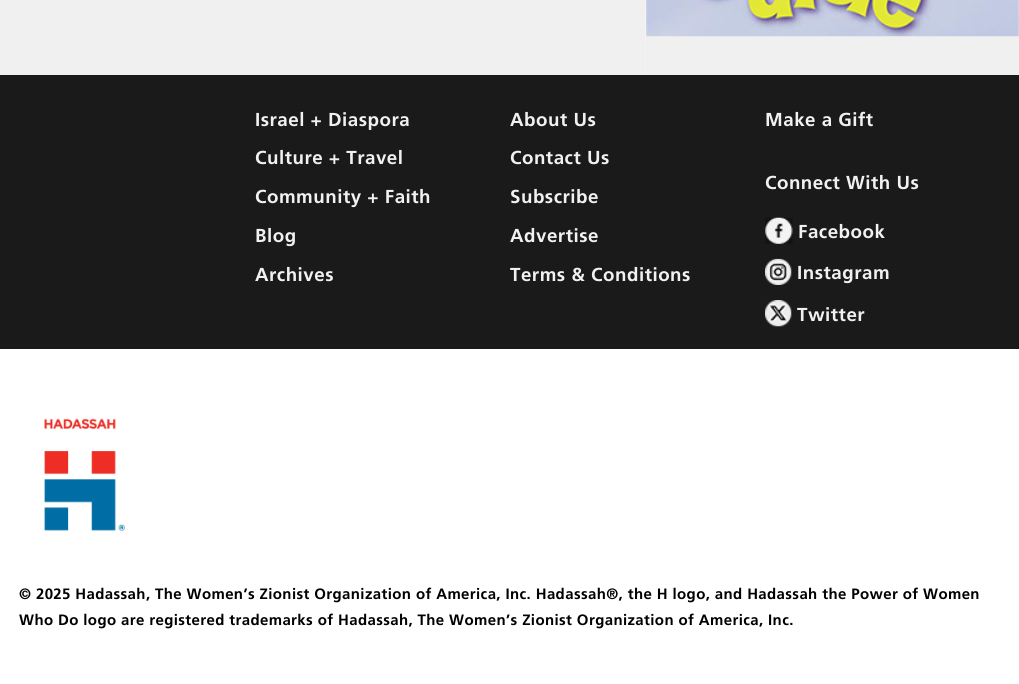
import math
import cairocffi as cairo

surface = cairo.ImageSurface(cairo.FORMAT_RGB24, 1019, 684)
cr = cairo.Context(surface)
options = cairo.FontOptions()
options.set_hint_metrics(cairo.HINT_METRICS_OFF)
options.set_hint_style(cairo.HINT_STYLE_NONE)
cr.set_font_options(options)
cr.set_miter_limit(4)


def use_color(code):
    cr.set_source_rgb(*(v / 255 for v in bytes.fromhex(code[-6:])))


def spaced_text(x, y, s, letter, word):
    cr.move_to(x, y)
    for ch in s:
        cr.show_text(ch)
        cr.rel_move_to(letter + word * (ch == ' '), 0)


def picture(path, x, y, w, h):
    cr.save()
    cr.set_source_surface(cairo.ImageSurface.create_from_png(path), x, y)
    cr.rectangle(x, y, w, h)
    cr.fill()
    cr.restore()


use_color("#1a1a1a")
cr.paint()
use_color("#f0f0f0")
cr.rectangle(0, 0, 1019, 75)
cr.fill()
use_color("#f3f3f3")
cr.rectangle(645, 0, 1, 75)
cr.fill()
picture("img1.png", 646, 0, 373, 37)
cr.select_font_face("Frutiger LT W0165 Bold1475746", cairo.FONT_SLANT_NORMAL, cairo.FONT_WEIGHT_BOLD)
cr.set_font_size(18.75)
use_color("#f1f1f1")
spaced_text(255, 126, "Israel + Diaspora", 0.5, 0)
spaced_text(255, 164, "Culture + Travel", 0.5, 0)
spaced_text(255, 203, "Community + Faith", 0.5, 0)
spaced_text(255, 242, "Blog", 0.5, 0)
spaced_text(255, 281, "Archives", 0.5, 0)
spaced_text(510, 126, "About Us", 0.5, 0)
spaced_text(510, 164, "Contact Us", 0.5, 0)
spaced_text(510, 203, "Subscribe", 0.5, 0)
spaced_text(510, 242, "Advertise", 0.5, 0)
spaced_text(510, 281, "Terms & Conditions", 0.5, 0)
spaced_text(765, 126, "Make a Gift", 0.5, 0)
spaced_text(765, 189, "Connect With Us", 0.5, 0)
picture("img2.png", 765, 217, 28, 27)
spaced_text(798, 238, "Facebook", 0.5, 0)
picture("img3.png", 765, 258, 27, 27)
spaced_text(797, 279, "Instagram", 0.5, 0)
picture("img4.png", 765, 300, 27, 27)
spaced_text(797, 321, "Twitter", 0.5, 0)
use_color("#ffffff")
cr.rectangle(0, 349, 1019, 335)
cr.fill()
picture("img5.png", 44, 418, 81, 113)
cr.set_font_size(15)
use_color("#000000")
spaced_text(19, 599, "© 2025 Hadassah, The Women’s Zionist Organization of America, Inc. Hadassah®, the H logo, and Hadassah the Power of Women", 0.38, 0)
spaced_text(19, 625, "Who Do logo are registered trademarks of Hadassah, The Women’s Zionist Organization of America, Inc.", 0.38, 0)
surface.write_to_png("result.png")
